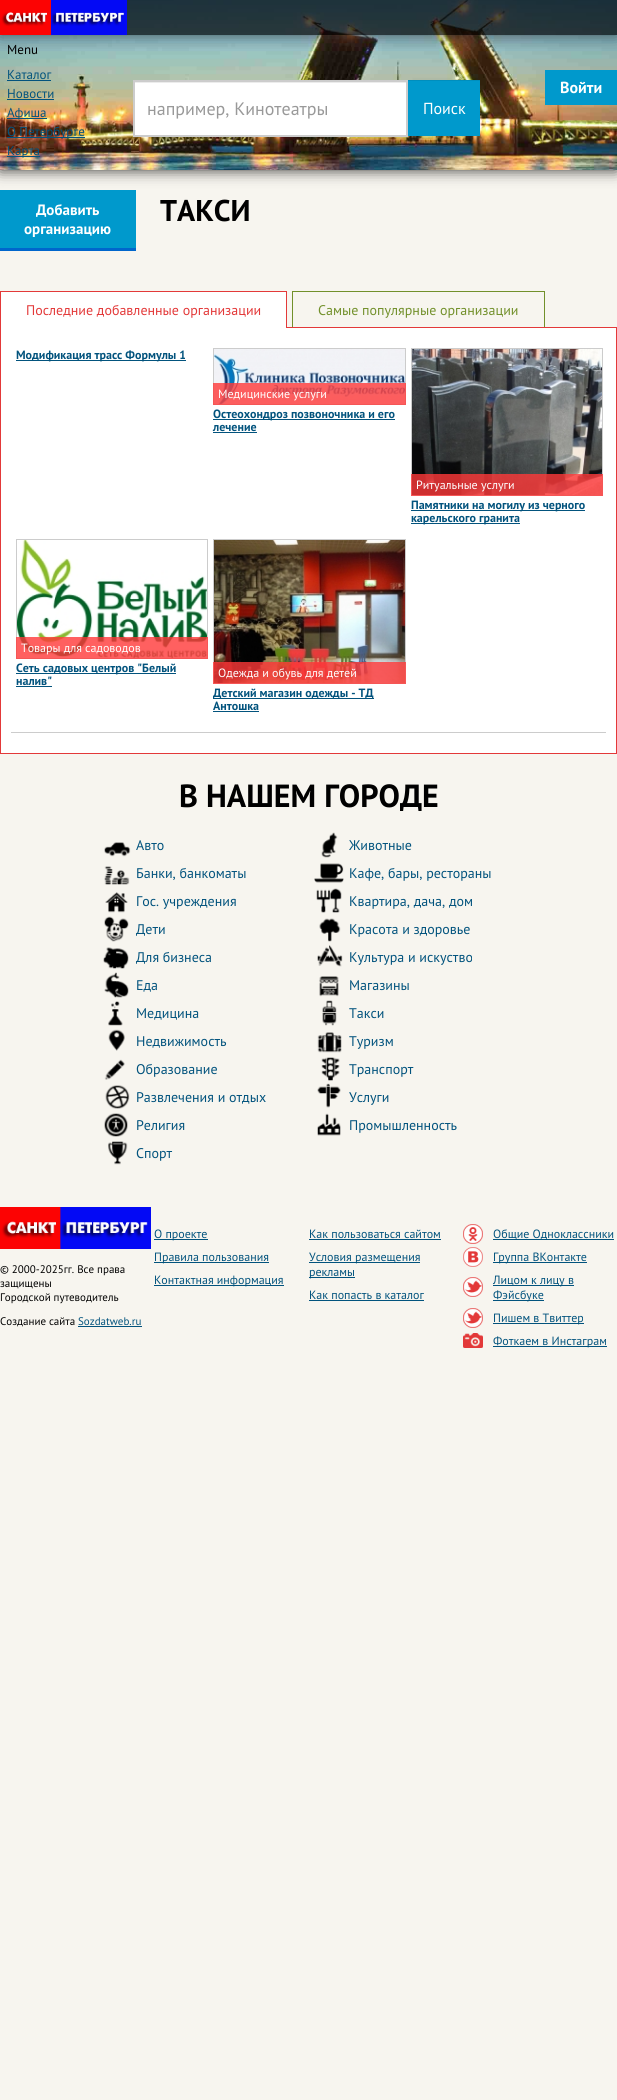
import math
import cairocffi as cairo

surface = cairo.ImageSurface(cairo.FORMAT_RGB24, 617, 2100)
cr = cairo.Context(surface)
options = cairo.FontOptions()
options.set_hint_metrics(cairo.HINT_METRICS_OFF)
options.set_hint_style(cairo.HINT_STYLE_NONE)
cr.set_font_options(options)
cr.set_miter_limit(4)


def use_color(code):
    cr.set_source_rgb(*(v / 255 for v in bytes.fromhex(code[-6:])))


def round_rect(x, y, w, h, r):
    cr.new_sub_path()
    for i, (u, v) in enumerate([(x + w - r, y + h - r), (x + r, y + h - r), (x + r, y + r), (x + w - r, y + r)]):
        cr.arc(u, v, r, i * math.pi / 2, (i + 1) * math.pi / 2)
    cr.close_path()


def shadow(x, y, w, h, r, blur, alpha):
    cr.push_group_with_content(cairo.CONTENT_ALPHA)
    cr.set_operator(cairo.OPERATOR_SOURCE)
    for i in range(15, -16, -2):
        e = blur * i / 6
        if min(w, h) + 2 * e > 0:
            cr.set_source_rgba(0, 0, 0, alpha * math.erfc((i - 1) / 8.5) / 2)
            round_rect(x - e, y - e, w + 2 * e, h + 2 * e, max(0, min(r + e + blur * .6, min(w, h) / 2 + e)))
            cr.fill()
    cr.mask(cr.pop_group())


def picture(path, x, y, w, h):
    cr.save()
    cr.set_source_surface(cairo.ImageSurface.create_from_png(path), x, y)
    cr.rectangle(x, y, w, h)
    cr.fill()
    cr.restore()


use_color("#f7f5ef")
cr.paint()
use_color("#0099cc")
cr.rectangle(0, 190, 136, 58)
cr.fill()
use_color("#000000")
shadow(0, 0, 617, 170, 0, 7.5, 0.8)
picture("img2.png", 0, 0, 617, 170)
cr.save()
cr.rectangle(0, 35, 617, 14)
cr.clip()
use_color("#323232")
shadow(0, 0, 617, 35, 0, 7.5, 0.75)
cr.restore()
cr.set_source_rgba(0, 0, 0, 0.7)
cr.rectangle(127, 0, 490, 35)
cr.fill()
picture("img1.png", 0, 0, 127, 35)
cr.select_font_face("PT Sans")
cr.set_font_size(13)
use_color("#000000")
cr.move_to(7, 54)
cr.show_text("Menu")
use_color("#02537d")
cr.move_to(7, 79)
cr.show_text("Каталог")
cr.rectangle(7, 80, 44, 1)
cr.fill()
cr.move_to(7, 98)
cr.show_text("Новости")
cr.rectangle(7, 99, 47, 1)
cr.fill()
cr.rectangle(7, 118, 40, 1)
cr.fill()
cr.move_to(7, 117)
cr.show_text("Афиша")
cr.rectangle(7, 137, 78, 1)
cr.fill()
cr.move_to(7, 136)
cr.show_text("О Петербурге")
cr.rectangle(7, 156, 33, 1)
cr.fill()
cr.move_to(7, 155)
cr.show_text("Карта")
use_color("#0099cc")
cr.rectangle(545, 70, 72, 35)
cr.fill()
cr.select_font_face("PT Sans", cairo.FONT_SLANT_NORMAL, cairo.FONT_WEIGHT_BOLD)
cr.set_font_size(16)
use_color("#ffffff")
cr.move_to(560, 93)
cr.show_text("Войти")
cr.rectangle(135, 83, 271, 52)
cr.fill()
use_color("#ececec")
cr.rectangle(135, 82, 271, 1)
cr.fill()
cr.rectangle(134, 81, 273, 55)
use_color("#cccccc")
cr.stroke()
cr.select_font_face("PT Sans")
cr.set_font_size(18)
use_color("#999999")
cr.move_to(147, 115)
cr.show_text("например, Кинотеатры")
use_color("#0099cc")
cr.rectangle(408, 81, 72, 55)
cr.fill()
use_color("#008ebd")
cr.rectangle(408, 80, 72, 1)
cr.fill()
cr.set_font_size(16)
use_color("#ffffff")
cr.move_to(423, 114)
cr.show_text("Поиск")
use_color("#0066cc")
cr.rectangle(0, 248, 136, 3)
cr.fill()
cr.select_font_face("PT Sans", cairo.FONT_SLANT_NORMAL, cairo.FONT_WEIGHT_BOLD)
cr.set_font_size(15)
use_color("#ffffff")
cr.move_to(36, 215)
cr.show_text("Добавить")
cr.move_to(24, 234)
cr.show_text("организацию")
cr.set_font_size(30)
use_color("#000000")
cr.move_to(160, 221)
cr.show_text("ТАКСИ")
use_color("#72902b")
cr.rectangle(292, 291, 253, 1)
cr.fill()
cr.rectangle(544, 291, 1, 37)
cr.fill()
cr.rectangle(292, 291, 1, 37)
cr.fill()
use_color("#ffffff")
cr.rectangle(0.5, 327.5, 616, 426)
cr.fill_preserve()
use_color("#e33939")
cr.set_line_width(1)
cr.stroke()
use_color("#ffffff")
cr.rectangle(1, 292, 285, 36)
cr.fill()
use_color("#e33939")
cr.rectangle(0, 291, 287, 1)
cr.fill()
cr.rectangle(286, 291, 1, 37)
cr.fill()
cr.rectangle(0, 291, 1, 37)
cr.fill()
cr.select_font_face("PT Sans")
cr.set_font_size(14)
cr.move_to(26, 315)
cr.show_text("Последние добавленные организации")
use_color("#72902b")
cr.move_to(318, 315)
cr.show_text("Самые популярные организации")
use_color("#cccccc")
cr.rectangle(11, 732, 595, 1)
cr.fill()
use_color("#02537d")
cr.rectangle(16, 360, 170, 1)
cr.fill()
cr.select_font_face("PT Sans", cairo.FONT_SLANT_NORMAL, cairo.FONT_WEIGHT_BOLD)
cr.set_font_size(12)
cr.move_to(16, 359)
cr.show_text("Модификация трасс Формулы 1")
cr.rectangle(213.5, 348.5, 192, 56)
use_color("#cccccc")
cr.stroke()
picture("img3.png", 214, 349, 191, 55)
cr.set_source_rgba(1, 0.224, 0.224, 0.8)
cr.rectangle(213, 383, 193, 22)
cr.fill()
cr.select_font_face("PT Sans")
use_color("#ffffff")
cr.move_to(218, 398)
cr.show_text("Медицинские услуги")
use_color("#02537d")
cr.rectangle(213, 419, 182, 1)
cr.fill()
cr.select_font_face("PT Sans", cairo.FONT_SLANT_NORMAL, cairo.FONT_WEIGHT_BOLD)
cr.move_to(213, 418)
cr.show_text("Остеохондроз позвоночника и его")
cr.move_to(213, 431)
cr.show_text("лечение")
cr.rectangle(213, 432, 44, 1)
cr.fill()
cr.rectangle(411.5, 348.5, 191, 147)
use_color("#cccccc")
cr.stroke()
picture("img4.png", 412, 349, 190, 146)
cr.set_source_rgba(1, 0.224, 0.224, 0.8)
cr.rectangle(411, 474, 192, 22)
cr.fill()
cr.select_font_face("PT Sans")
use_color("#ffffff")
cr.move_to(416, 489)
cr.show_text("Ритуальные услуги")
use_color("#02537d")
cr.rectangle(411, 510, 174, 1)
cr.fill()
cr.select_font_face("PT Sans", cairo.FONT_SLANT_NORMAL, cairo.FONT_WEIGHT_BOLD)
cr.move_to(411, 509)
cr.show_text("Памятники на могилу из черного")
cr.rectangle(411, 523, 109, 1)
cr.fill()
cr.move_to(411, 522)
cr.show_text("карельского гранита")
cr.rectangle(16.5, 539.5, 191, 119)
use_color("#cccccc")
cr.stroke()
picture("img5.png", 17, 540, 190, 118)
cr.set_source_rgba(1, 0.224, 0.224, 0.8)
cr.rectangle(16, 637, 192, 22)
cr.fill()
cr.select_font_face("PT Sans")
use_color("#ffffff")
cr.move_to(21, 652)
cr.show_text("Товары для садоводов")
use_color("#02537d")
cr.rectangle(16, 673, 160, 1)
cr.fill()
cr.select_font_face("PT Sans", cairo.FONT_SLANT_NORMAL, cairo.FONT_WEIGHT_BOLD)
cr.move_to(16, 672)
cr.show_text("Сеть садовых центров \"Белый")
cr.move_to(16, 685)
cr.show_text("налив\"")
cr.rectangle(16, 686, 36, 1)
cr.fill()
cr.rectangle(213.5, 539.5, 192, 144)
use_color("#cccccc")
cr.stroke()
picture("img6.png", 214, 540, 191, 143)
cr.set_source_rgba(1, 0.224, 0.224, 0.8)
cr.rectangle(213, 662, 193, 22)
cr.fill()
cr.select_font_face("PT Sans")
use_color("#ffffff")
cr.move_to(218, 677)
cr.show_text("Одежда и обувь для детей")
use_color("#02537d")
cr.rectangle(213, 698, 161, 1)
cr.fill()
cr.select_font_face("PT Sans", cairo.FONT_SLANT_NORMAL, cairo.FONT_WEIGHT_BOLD)
cr.move_to(213, 697)
cr.show_text("Детский магазин одежды - ТД")
cr.move_to(213, 710)
cr.show_text("Антошка")
cr.rectangle(213, 711, 46, 1)
cr.fill()
cr.set_font_size(32)
use_color("#000000")
cr.move_to(179, 807)
cr.show_text("В НАШЕМ ГОРОДЕ")
picture("img7.png", 104, 842, 27, 15)
cr.select_font_face("PT Sans")
cr.set_font_size(14)
use_color("#02537d")
cr.move_to(136, 850)
cr.show_text("Авто")
picture("img8.png", 104, 866, 26, 19)
cr.move_to(136, 878)
cr.show_text("Банки, банкоматы")
picture("img9.png", 105, 892, 23, 21)
cr.move_to(136, 906)
cr.show_text("Гос. учреждения")
picture("img10.png", 104, 916, 25, 26)
cr.move_to(136, 934)
cr.show_text("Дети")
picture("img11.png", 103, 947, 26, 22)
cr.move_to(136, 962)
cr.show_text("Для бизнеса")
picture("img12.png", 104, 972, 25, 26)
cr.move_to(136, 990)
cr.show_text("Еда")
picture("img13.png", 321, 832, 17, 26)
cr.move_to(349, 850)
cr.show_text("Животные")
picture("img14.png", 314, 863, 30, 20)
cr.move_to(349, 878)
cr.show_text("Кафе, бары, рестораны")
picture("img15.png", 316, 888, 26, 25)
cr.move_to(349, 906)
cr.show_text("Квартира, дача, дом")
picture("img16.png", 319, 918, 22, 24)
cr.move_to(349, 934)
cr.show_text("Красота и здоровье")
picture("img17.png", 317, 945, 26, 22)
cr.move_to(349, 962)
cr.show_text("Культура и искуство")
picture("img18.png", 319, 976, 20, 21)
cr.move_to(349, 990)
cr.show_text("Магазины")
picture("img19.png", 108, 1001, 15, 25)
cr.move_to(136, 1018)
cr.show_text("Медицина")
picture("img20.png", 108, 1029, 17, 22)
cr.move_to(136, 1046)
cr.show_text("Недвижимость")
picture("img21.png", 104, 1059, 21, 21)
cr.move_to(136, 1074)
cr.show_text("Образование")
picture("img22.png", 105, 1085, 25, 24)
cr.move_to(136, 1102)
cr.show_text("Развлечения и отдых")
picture("img23.png", 104, 1113, 24, 24)
cr.move_to(136, 1130)
cr.show_text("Религия")
picture("img24.png", 108, 1141, 20, 24)
cr.move_to(136, 1158)
cr.show_text("Спорт")
picture("img25.png", 322, 1000, 15, 26)
cr.move_to(349, 1018)
cr.show_text("Такси")
picture("img26.png", 317, 1032, 25, 21)
cr.move_to(349, 1046)
cr.show_text("Туризм")
picture("img27.png", 321, 1057, 19, 24)
cr.move_to(349, 1074)
cr.show_text("Транспорт")
picture("img28.png", 317, 1083, 24, 25)
cr.move_to(349, 1102)
cr.show_text("Услуги")
picture("img29.png", 317, 1113, 24, 23)
cr.move_to(349, 1130)
cr.show_text("Промышленность")
picture("img30.png", 0, 1207, 151, 42)
cr.set_font_size(11)
use_color("#000000")
cr.move_to(0, 1273)
cr.show_text("© 2000-2025гг. Все права")
cr.move_to(0, 1287)
cr.show_text("защищены")
cr.move_to(0, 1301)
cr.show_text("Городской путеводитель")
cr.move_to(0, 1325)
cr.show_text("Создание сайта")
use_color("#02537d")
cr.move_to(78, 1325)
cr.show_text("Sozdatweb.ru")
cr.rectangle(78, 1326, 64, 1)
cr.fill()
cr.rectangle(154, 1239, 54, 1)
cr.fill()
cr.set_font_size(12)
cr.move_to(154, 1238)
cr.show_text("О проекте")
cr.rectangle(154, 1262, 115, 1)
cr.fill()
cr.move_to(154, 1261)
cr.show_text("Правила пользования")
cr.rectangle(154, 1285, 130, 1)
cr.fill()
cr.move_to(154, 1284)
cr.show_text("Контактная информация")
cr.move_to(309, 1238)
cr.show_text("Как пользоваться сайтом")
cr.rectangle(309, 1239, 132, 1)
cr.fill()
cr.rectangle(309, 1262, 111, 1)
cr.fill()
cr.move_to(309, 1261)
cr.show_text("Условия размещения")
cr.rectangle(309, 1277, 46, 1)
cr.fill()
cr.move_to(309, 1276)
cr.show_text("рекламы")
cr.move_to(309, 1299)
cr.show_text("Как попасть в каталог")
cr.rectangle(309, 1300, 115, 1)
cr.fill()
picture("img31.png", 463, 1224, 20, 20)
cr.rectangle(493, 1239, 121, 1)
cr.fill()
cr.move_to(493, 1238)
cr.show_text("Общие Одноклассники")
picture("img32.png", 463, 1247, 20, 20)
cr.rectangle(493, 1262, 94, 1)
cr.fill()
cr.move_to(493, 1261)
cr.show_text("Группа ВКонтакте")
picture("img33.png", 463, 1277, 20, 20)
cr.rectangle(493, 1285, 81, 1)
cr.fill()
cr.move_to(493, 1284)
cr.show_text("Лицом к лицу в")
cr.rectangle(493, 1300, 51, 1)
cr.fill()
cr.move_to(493, 1299)
cr.show_text("Фэйсбуке")
picture("img33.png", 463, 1308, 20, 20)
cr.rectangle(493, 1323, 91, 1)
cr.fill()
cr.move_to(493, 1322)
cr.show_text("Пишем в Твиттер")
picture("img34.png", 463, 1333, 20, 15)
cr.rectangle(493, 1346, 114, 1)
cr.fill()
cr.move_to(493, 1345)
cr.show_text("Фоткаем в Инстаграм")
surface.write_to_png("result.png")
